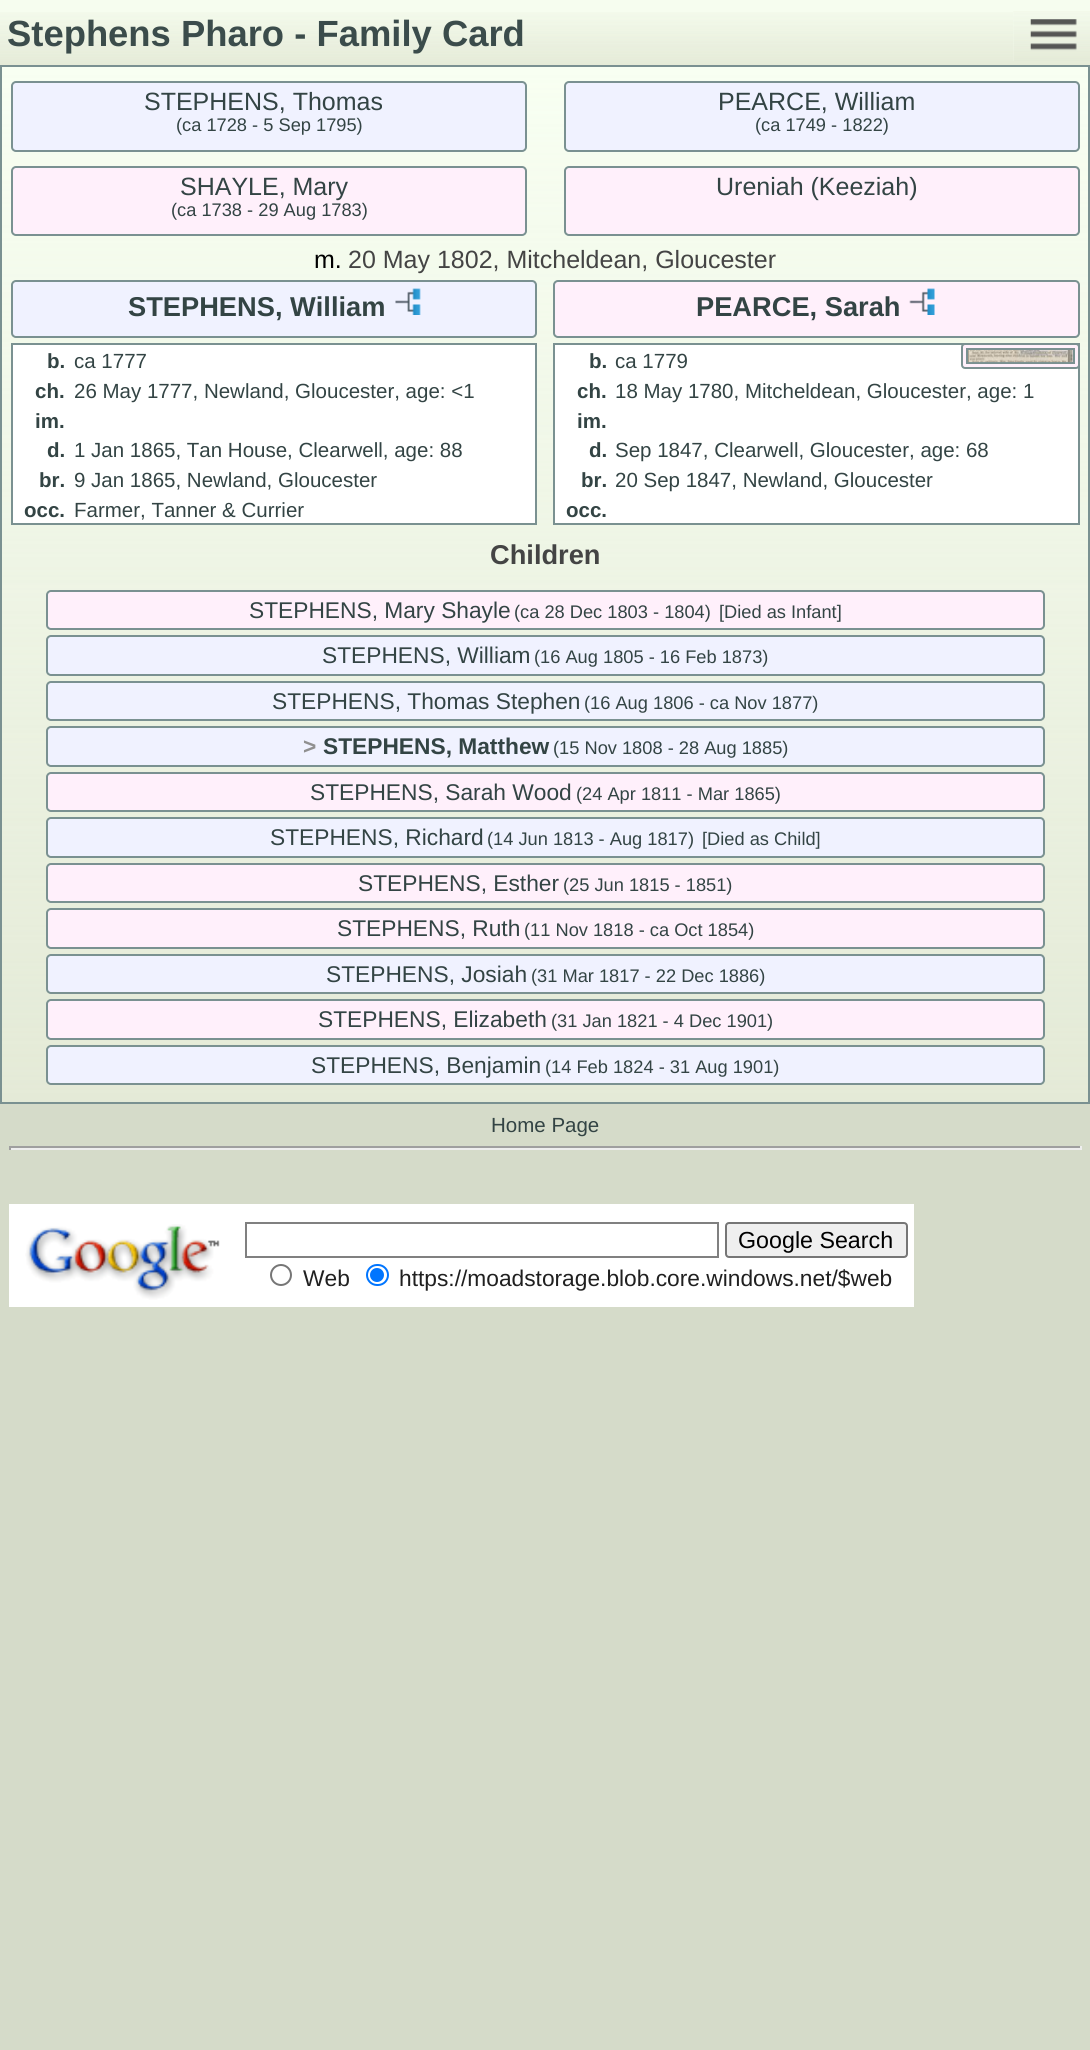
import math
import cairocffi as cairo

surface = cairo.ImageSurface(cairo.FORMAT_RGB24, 1090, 2050)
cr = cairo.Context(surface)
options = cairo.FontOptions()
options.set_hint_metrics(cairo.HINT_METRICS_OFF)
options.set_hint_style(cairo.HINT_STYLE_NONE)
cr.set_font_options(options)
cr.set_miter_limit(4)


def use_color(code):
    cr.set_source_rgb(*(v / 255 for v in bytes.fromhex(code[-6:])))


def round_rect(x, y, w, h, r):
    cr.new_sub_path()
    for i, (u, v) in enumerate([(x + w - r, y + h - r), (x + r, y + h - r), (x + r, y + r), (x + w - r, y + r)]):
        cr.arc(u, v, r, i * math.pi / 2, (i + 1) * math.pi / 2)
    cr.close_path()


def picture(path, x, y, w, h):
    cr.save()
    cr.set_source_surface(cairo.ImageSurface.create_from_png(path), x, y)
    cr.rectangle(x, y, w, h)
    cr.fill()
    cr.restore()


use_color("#d5dbc9")
cr.paint()
use_color("#f8fff2")
cr.rectangle(2, 67, 1086, 1028)
cr.fill()
picture("img4.png", 0, 64, 1090, 1038)
cr.set_source_rgba(0.973, 1, 0.949, 0.95)
cr.rectangle(0, 0, 1090, 65)
cr.fill()
picture("img1.png", 0, 12, 1090, 53)
cr.select_font_face("Liberation Sans", cairo.FONT_SLANT_NORMAL, cairo.FONT_WEIGHT_BOLD)
cr.set_font_size(36.4)
use_color("#3b4c4b")
cr.move_to(7, 46)
cr.show_text("Stephens Pharo - Family Card")
use_color("#f6fdf0")
cr.rectangle(1013, 12, 77, 49)
cr.fill()
picture("img2.png", 1013, 11, 77, 50)
picture("img3.png", 1030, 19, 47, 32)
cr.rectangle(1, 66, 1088, 1037)
use_color("#7a9191")
cr.stroke()
use_color("#f0f2ff")
round_rect(12, 82, 514, 69, 4)
cr.fill_preserve()
use_color("#7a9191")
cr.stroke()
cr.select_font_face("Liberation Sans")
cr.set_font_size(25)
use_color("#334444")
cr.move_to(144, 110)
cr.show_text("STEPHENS, Thomas")
cr.set_font_size(18.25)
cr.move_to(176, 131)
cr.show_text("(ca 1728 - 5 Sep 1795)")
use_color("#f0f2ff")
round_rect(565, 82, 514, 69, 4)
cr.fill_preserve()
use_color("#7a9191")
cr.stroke()
cr.set_font_size(25)
use_color("#334444")
cr.move_to(718, 110)
cr.show_text("PEARCE, William")
cr.set_font_size(18.25)
cr.move_to(755, 131)
cr.show_text("(ca 1749 - 1822)")
use_color("#fff0fb")
round_rect(12, 167, 514, 68, 4)
cr.fill_preserve()
use_color("#7a9191")
cr.stroke()
cr.set_font_size(25)
use_color("#334444")
cr.move_to(180, 195)
cr.show_text("SHAYLE, Mary")
cr.set_font_size(18.25)
cr.move_to(171, 216)
cr.show_text("(ca 1738 - 29 Aug 1783)")
use_color("#fff0fb")
round_rect(565, 167, 514, 68, 4)
cr.fill_preserve()
use_color("#7a9191")
cr.stroke()
cr.set_font_size(25)
use_color("#334444")
cr.move_to(716, 195)
cr.show_text("Ureniah (Keeziah)")
use_color("#000000")
cr.move_to(314, 268)
cr.show_text("m.")
use_color("#444444")
cr.move_to(348, 268)
cr.show_text("20 May 1802, Mitcheldean, Gloucester")
use_color("#f0f2ff")
round_rect(12, 281, 524, 56, 4)
cr.fill_preserve()
use_color("#7a9191")
cr.stroke()
cr.select_font_face("Liberation Sans", cairo.FONT_SLANT_NORMAL, cairo.FONT_WEIGHT_BOLD)
cr.set_font_size(27.25)
use_color("#334444")
cr.move_to(128, 316)
cr.show_text("STEPHENS, William")
picture("img5.png", 395, 288, 26, 27)
use_color("#fff0fb")
round_rect(554, 281, 525, 56, 4)
cr.fill_preserve()
use_color("#7a9191")
cr.stroke()
use_color("#334444")
cr.move_to(696, 316)
cr.show_text("PEARCE, Sarah")
picture("img6.png", 909, 288, 26, 27)
use_color("#ffffff")
cr.rectangle(12, 344, 524, 180)
cr.fill_preserve()
use_color("#7a9191")
cr.stroke()
cr.set_font_size(20.5)
use_color("#334444")
cr.move_to(47, 368)
cr.show_text("b.")
cr.select_font_face("Liberation Sans")
cr.move_to(74, 368)
cr.show_text("ca 1777")
cr.select_font_face("Liberation Sans", cairo.FONT_SLANT_NORMAL, cairo.FONT_WEIGHT_BOLD)
cr.move_to(35, 398)
cr.show_text("ch.")
cr.select_font_face("Liberation Sans")
cr.move_to(74, 398)
cr.show_text("26 May 1777, Newland, Gloucester, age: <1")
cr.select_font_face("Liberation Sans", cairo.FONT_SLANT_NORMAL, cairo.FONT_WEIGHT_BOLD)
cr.move_to(35, 428)
cr.show_text("im.")
cr.move_to(47, 457)
cr.show_text("d.")
cr.select_font_face("Liberation Sans")
cr.move_to(74, 457)
cr.show_text("1 Jan 1865, Tan House, Clearwell, age: 88")
cr.select_font_face("Liberation Sans", cairo.FONT_SLANT_NORMAL, cairo.FONT_WEIGHT_BOLD)
cr.move_to(39, 487)
cr.show_text("br.")
cr.select_font_face("Liberation Sans")
cr.move_to(74, 487)
cr.show_text("9 Jan 1865, Newland, Gloucester")
cr.select_font_face("Liberation Sans", cairo.FONT_SLANT_NORMAL, cairo.FONT_WEIGHT_BOLD)
cr.move_to(24, 517)
cr.show_text("occ.")
cr.select_font_face("Liberation Sans")
cr.move_to(74, 517)
cr.show_text("Farmer, Tanner & Currier")
use_color("#ffffff")
cr.rectangle(554, 344, 525, 180)
cr.fill_preserve()
use_color("#7a9191")
cr.stroke()
cr.select_font_face("Liberation Sans", cairo.FONT_SLANT_NORMAL, cairo.FONT_WEIGHT_BOLD)
use_color("#334444")
cr.move_to(589, 368)
cr.show_text("b.")
cr.select_font_face("Liberation Sans")
cr.move_to(615, 368)
cr.show_text("ca 1779")
use_color("#fff0fb")
round_rect(962, 344, 117, 24, 3)
cr.fill_preserve()
use_color("#7a9191")
cr.stroke()
cr.rectangle(967, 349, 107, 14)
cr.stroke()
picture("img7.png", 968, 350, 105, 13)
cr.select_font_face("Liberation Sans", cairo.FONT_SLANT_NORMAL, cairo.FONT_WEIGHT_BOLD)
use_color("#334444")
cr.move_to(577, 398)
cr.show_text("ch.")
cr.select_font_face("Liberation Sans")
cr.move_to(615, 398)
cr.show_text("18 May 1780, Mitcheldean, Gloucester, age: 1")
cr.select_font_face("Liberation Sans", cairo.FONT_SLANT_NORMAL, cairo.FONT_WEIGHT_BOLD)
cr.move_to(577, 428)
cr.show_text("im.")
cr.move_to(589, 457)
cr.show_text("d.")
cr.select_font_face("Liberation Sans")
cr.move_to(615, 457)
cr.show_text("Sep 1847, Clearwell, Gloucester, age: 68")
cr.select_font_face("Liberation Sans", cairo.FONT_SLANT_NORMAL, cairo.FONT_WEIGHT_BOLD)
cr.move_to(581, 487)
cr.show_text("br.")
cr.select_font_face("Liberation Sans")
cr.move_to(615, 487)
cr.show_text("20 Sep 1847, Newland, Gloucester")
cr.select_font_face("Liberation Sans", cairo.FONT_SLANT_NORMAL, cairo.FONT_WEIGHT_BOLD)
cr.move_to(566, 517)
cr.show_text("occ.")
cr.set_font_size(27.25)
use_color("#444444")
cr.move_to(490, 564)
cr.show_text("Children")
use_color("#fff0fb")
round_rect(47, 591, 997, 38, 4)
cr.fill_preserve()
use_color("#7a9191")
cr.stroke()
cr.select_font_face("Liberation Sans")
cr.set_font_size(22.75)
use_color("#334444")
cr.move_to(249, 618)
cr.show_text("STEPHENS, Mary Shayle")
cr.set_font_size(18.25)
cr.move_to(514, 618)
cr.show_text("(ca 28 Dec 1803 - 1804)")
cr.move_to(719, 618)
cr.show_text("[Died as Infant]")
use_color("#f0f2ff")
round_rect(47, 636, 997, 39, 4)
cr.fill_preserve()
use_color("#7a9191")
cr.stroke()
cr.set_font_size(22.75)
use_color("#334444")
cr.move_to(322, 663)
cr.show_text("STEPHENS, William")
cr.set_font_size(18.25)
cr.move_to(534, 663)
cr.show_text("(16 Aug 1805 - 16 Feb 1873)")
use_color("#f0f2ff")
round_rect(47, 682, 997, 38, 4)
cr.fill_preserve()
use_color("#7a9191")
cr.stroke()
cr.set_font_size(22.75)
use_color("#334444")
cr.move_to(272, 709)
cr.show_text("STEPHENS, Thomas Stephen")
cr.set_font_size(18.25)
cr.move_to(584, 709)
cr.show_text("(16 Aug 1806 - ca Nov 1877)")
use_color("#f0f2ff")
round_rect(47, 727, 997, 39, 4)
cr.fill_preserve()
use_color("#7a9191")
cr.stroke()
cr.select_font_face("Liberation Sans", cairo.FONT_SLANT_NORMAL, cairo.FONT_WEIGHT_BOLD)
cr.set_font_size(22.75)
use_color("#909090")
cr.move_to(303, 754)
cr.show_text(">")
use_color("#334444")
cr.move_to(323, 754)
cr.show_text("STEPHENS, Matthew")
cr.select_font_face("Liberation Sans")
cr.set_font_size(18.25)
cr.move_to(553, 754)
cr.show_text("(15 Nov 1808 - 28 Aug 1885)")
use_color("#fff0fb")
round_rect(47, 773, 997, 38, 4)
cr.fill_preserve()
use_color("#7a9191")
cr.stroke()
cr.set_font_size(22.75)
use_color("#334444")
cr.move_to(310, 800)
cr.show_text("STEPHENS, Sarah Wood")
cr.set_font_size(18.25)
cr.move_to(576, 800)
cr.show_text("(24 Apr 1811 - Mar 1865)")
use_color("#f0f2ff")
round_rect(47, 818, 997, 39, 4)
cr.fill_preserve()
use_color("#7a9191")
cr.stroke()
cr.set_font_size(22.75)
use_color("#334444")
cr.move_to(270, 845)
cr.show_text("STEPHENS, Richard")
cr.set_font_size(18.25)
cr.move_to(487, 845)
cr.show_text("(14 Jun 1813 - Aug 1817)")
cr.move_to(702, 845)
cr.show_text("[Died as Child]")
use_color("#fff0fb")
round_rect(47, 864, 997, 38, 4)
cr.fill_preserve()
use_color("#7a9191")
cr.stroke()
cr.set_font_size(22.75)
use_color("#334444")
cr.move_to(358, 891)
cr.show_text("STEPHENS, Esther")
cr.set_font_size(18.25)
cr.move_to(563, 891)
cr.show_text("(25 Jun 1815 - 1851)")
use_color("#fff0fb")
round_rect(47, 909, 997, 39, 4)
cr.fill_preserve()
use_color("#7a9191")
cr.stroke()
cr.set_font_size(22.75)
use_color("#334444")
cr.move_to(337, 936)
cr.show_text("STEPHENS, Ruth")
cr.set_font_size(18.25)
cr.move_to(524, 936)
cr.show_text("(11 Nov 1818 - ca Oct 1854)")
use_color("#f0f2ff")
round_rect(47, 955, 997, 38, 4)
cr.fill_preserve()
use_color("#7a9191")
cr.stroke()
cr.set_font_size(22.75)
use_color("#334444")
cr.move_to(326, 982)
cr.show_text("STEPHENS, Josiah")
cr.set_font_size(18.25)
cr.move_to(531, 982)
cr.show_text("(31 Mar 1817 - 22 Dec 1886)")
use_color("#fff0fb")
round_rect(47, 1000, 997, 39, 4)
cr.fill_preserve()
use_color("#7a9191")
cr.stroke()
cr.set_font_size(22.75)
use_color("#334444")
cr.move_to(318, 1027)
cr.show_text("STEPHENS, Elizabeth")
cr.set_font_size(18.25)
cr.move_to(551, 1027)
cr.show_text("(31 Jan 1821 - 4 Dec 1901)")
use_color("#f0f2ff")
round_rect(47, 1046, 997, 38, 4)
cr.fill_preserve()
use_color("#7a9191")
cr.stroke()
cr.set_font_size(22.75)
use_color("#334444")
cr.move_to(311, 1073)
cr.show_text("STEPHENS, Benjamin")
cr.set_font_size(18.25)
cr.move_to(545, 1073)
cr.show_text("(14 Feb 1824 - 31 Aug 1901)")
cr.set_font_size(20.5)
cr.move_to(491, 1132)
cr.show_text("Home Page")
use_color("#9f9f9f")
cr.rectangle(9, 1146, 1073, 2)
cr.fill()
use_color("#eeeeee")
cr.rectangle(1080, 1146, 2, 4)
cr.fill()
cr.rectangle(9, 1148, 1073, 2)
cr.fill()
use_color("#9f9f9f")
cr.rectangle(9, 1146, 2, 4)
cr.fill()
use_color("#ffffff")
cr.rectangle(9, 1204, 905, 103)
cr.fill()
picture("img8.png", 25, 1224, 195, 76)
cr.rectangle(246, 1223, 472, 34)
use_color("#808080")
cr.stroke()
use_color("#efefef")
round_rect(726, 1223, 181, 34, 3)
cr.fill_preserve()
use_color("#767676")
cr.stroke()
cr.set_font_size(23.25)
use_color("#000000")
cr.move_to(738, 1248)
cr.show_text("Google Search")
cr.new_path()
cr.arc(281, 1275, 10, 0, 2 * math.pi)
use_color("#767676")
cr.stroke()
cr.set_font_size(22.75)
use_color("#202020")
cr.move_to(303, 1286)
cr.show_text("Web")
round_rect(367, 1265, 21, 20, 10)
use_color("#0075ff")
cr.stroke()
cr.arc(377, 1275, 7, 0, 2 * math.pi)
cr.fill()
use_color("#202020")
cr.move_to(399, 1286)
cr.show_text("https://moadstorage.blob.core.windows.net/$web")
surface.write_to_png("result.png")
